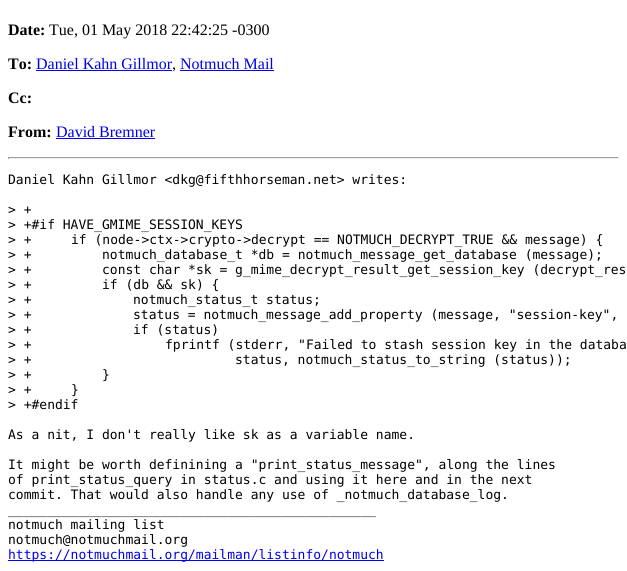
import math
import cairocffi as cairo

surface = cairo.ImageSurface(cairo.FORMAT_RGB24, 627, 571)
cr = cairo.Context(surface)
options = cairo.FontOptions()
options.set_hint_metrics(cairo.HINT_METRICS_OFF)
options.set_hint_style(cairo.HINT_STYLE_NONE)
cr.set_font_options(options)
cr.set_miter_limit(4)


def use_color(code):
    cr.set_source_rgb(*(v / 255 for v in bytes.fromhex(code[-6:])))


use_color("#ffffff")
cr.paint()
cr.select_font_face("Liberation Serif", cairo.FONT_SLANT_NORMAL, cairo.FONT_WEIGHT_BOLD)
cr.set_font_size(16)
use_color("#000000")
cr.move_to(8, 35)
cr.show_text("Date:")
cr.select_font_face("Liberation Serif")
cr.move_to(49, 35)
cr.show_text("Tue, 01 May 2018 22:42:25 -0300")
cr.select_font_face("Liberation Serif", cairo.FONT_SLANT_NORMAL, cairo.FONT_WEIGHT_BOLD)
cr.move_to(8, 69)
cr.show_text("To:")
cr.select_font_face("Liberation Serif")
use_color("#0000ee")
cr.move_to(36, 69)
cr.show_text("Daniel Kahn Gillmor")
cr.rectangle(36, 70, 136, 1)
cr.fill()
use_color("#000000")
cr.move_to(172, 69)
cr.show_text(",")
use_color("#0000ee")
cr.move_to(180, 69)
cr.show_text("Notmuch Mail")
cr.rectangle(180, 70, 94, 1)
cr.fill()
cr.select_font_face("Liberation Serif", cairo.FONT_SLANT_NORMAL, cairo.FONT_WEIGHT_BOLD)
use_color("#000000")
cr.move_to(8, 103)
cr.show_text("Cc:")
cr.move_to(8, 137)
cr.show_text("From:")
cr.select_font_face("Liberation Serif")
use_color("#0000ee")
cr.move_to(56, 137)
cr.show_text("David Bremner")
cr.rectangle(56, 138, 99, 1)
cr.fill()
use_color("#9f9f9f")
cr.rectangle(8, 157, 611, 1)
cr.fill()
use_color("#eeeeee")
cr.rectangle(618, 157, 1, 2)
cr.fill()
cr.rectangle(8, 158, 611, 1)
cr.fill()
use_color("#9f9f9f")
cr.rectangle(8, 157, 1, 2)
cr.fill()
cr.select_font_face("DejaVu Sans Mono")
cr.set_font_size(13)
use_color("#000000")
cr.move_to(8, 184)
cr.show_text("Daniel Kahn Gillmor <dkg@fifthhorseman.net> writes:")
cr.move_to(8, 214)
cr.show_text("> +")
cr.move_to(8, 229)
cr.show_text("> +#if HAVE_GMIME_SESSION_KEYS")
cr.move_to(8, 244)
cr.show_text("> +")
cr.move_to(71, 244)
cr.show_text("if (node->ctx->crypto->decrypt == NOTMUCH_DECRYPT_TRUE && message) {")
cr.move_to(8, 259)
cr.show_text("> +")
cr.move_to(102, 259)
cr.show_text("notmuch_database_t *db = notmuch_message_get_database (message);")
cr.move_to(8, 274)
cr.show_text("> +")
cr.move_to(102, 274)
cr.show_text("const char *sk = g_mime_decrypt_result_get_session_key (decrypt_res")
cr.move_to(8, 289)
cr.show_text("> +")
cr.move_to(102, 289)
cr.show_text("if (db && sk) {")
cr.move_to(8, 304)
cr.show_text("> +")
cr.move_to(133, 304)
cr.show_text("notmuch_status_t status;")
cr.move_to(8, 319)
cr.show_text("> +")
cr.move_to(133, 319)
cr.show_text("status = notmuch_message_add_property (message, \"session-key\",")
cr.move_to(8, 334)
cr.show_text("> +")
cr.move_to(133, 334)
cr.show_text("if (status)")
cr.move_to(8, 349)
cr.show_text("> +")
cr.move_to(165, 349)
cr.show_text("fprintf (stderr, \"Failed to stash session key in the databa")
cr.move_to(8, 364)
cr.show_text("> +")
cr.move_to(235, 364)
cr.show_text("status, notmuch_status_to_string (status));")
cr.move_to(8, 379)
cr.show_text("> +")
cr.move_to(102, 379)
cr.show_text("}")
cr.move_to(8, 394)
cr.show_text("> +")
cr.move_to(71, 394)
cr.show_text("}")
cr.move_to(8, 409)
cr.show_text("> +#endif")
cr.move_to(8, 439)
cr.show_text("As a nit, I don't really like sk as a variable name.")
cr.move_to(8, 469)
cr.show_text("It might be worth definining a \"print_status_message\", along the lines")
cr.move_to(8, 484)
cr.show_text("of print_status_query in status.c and using it here and in the next")
cr.move_to(8, 499)
cr.show_text("commit. That would also handle any use of _notmuch_database_log.")
cr.move_to(8, 514)
cr.show_text("_______________________________________________")
cr.move_to(8, 529)
cr.show_text("notmuch mailing list")
cr.move_to(8, 544)
cr.show_text("notmuch@notmuchmail.org")
use_color("#0000ee")
cr.rectangle(8, 560, 376, 1)
cr.fill()
cr.move_to(8, 559)
cr.show_text("https://notmuchmail.org/mailman/listinfo/notmuch")
surface.write_to_png("result.png")
